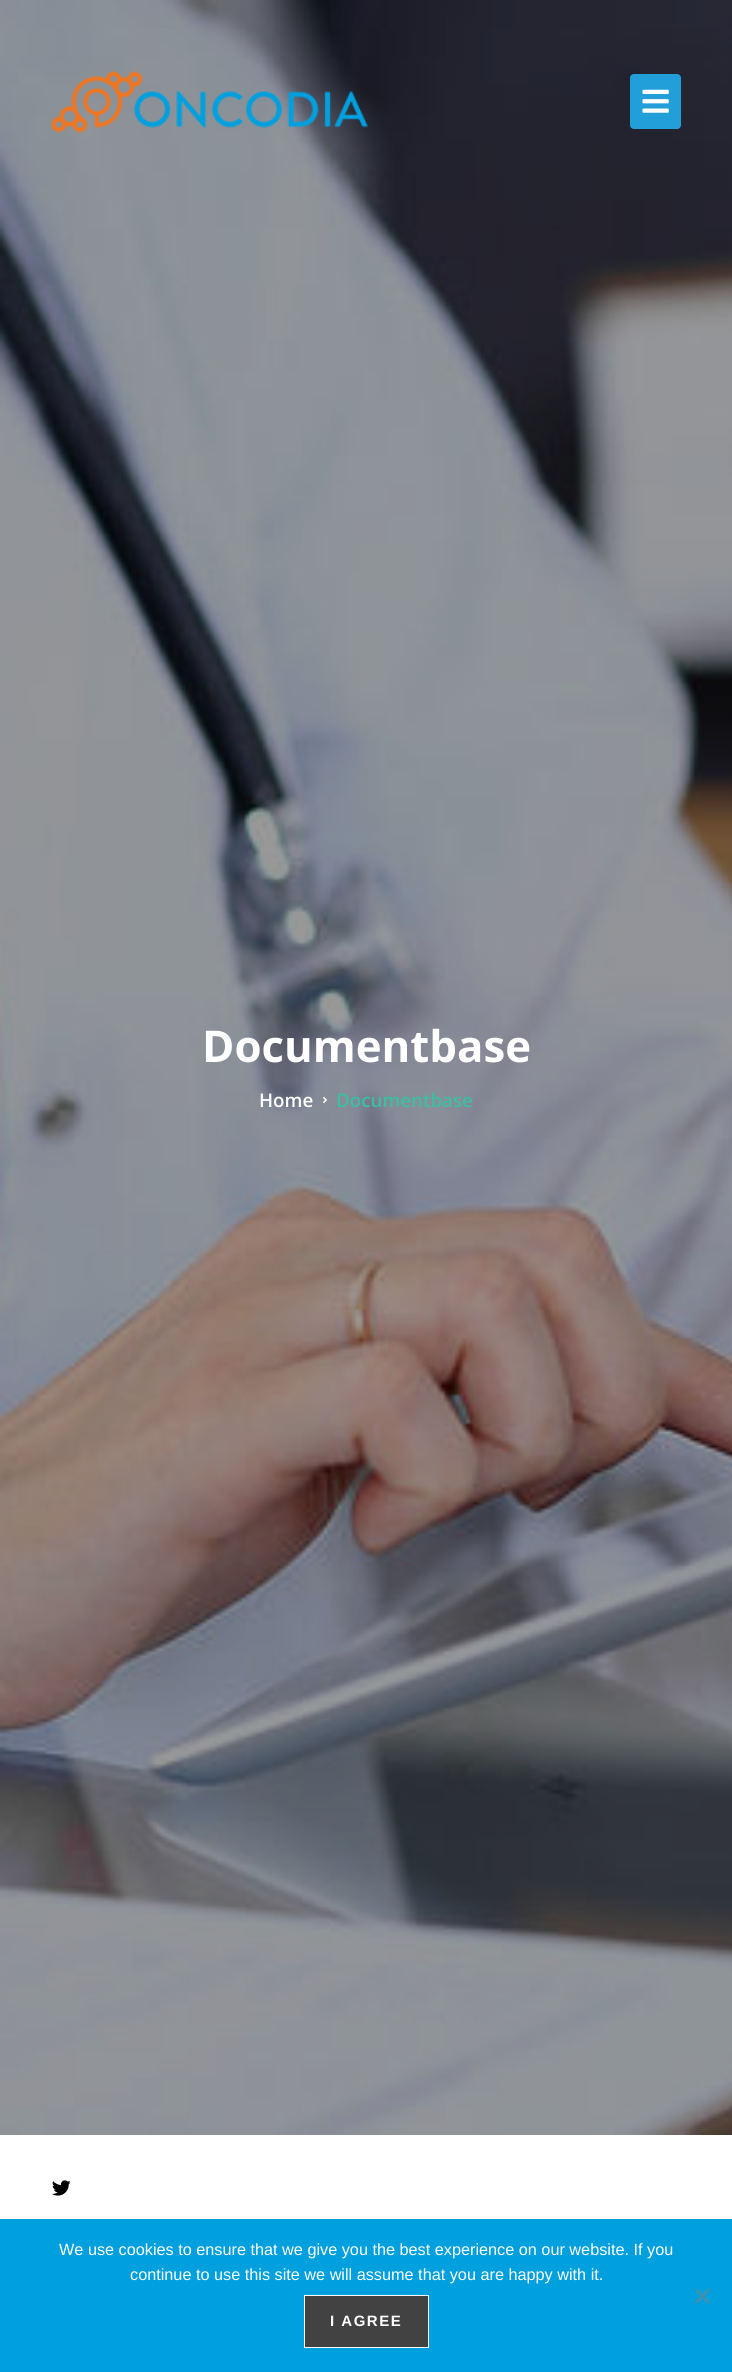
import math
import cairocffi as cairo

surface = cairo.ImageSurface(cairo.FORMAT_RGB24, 732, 2372)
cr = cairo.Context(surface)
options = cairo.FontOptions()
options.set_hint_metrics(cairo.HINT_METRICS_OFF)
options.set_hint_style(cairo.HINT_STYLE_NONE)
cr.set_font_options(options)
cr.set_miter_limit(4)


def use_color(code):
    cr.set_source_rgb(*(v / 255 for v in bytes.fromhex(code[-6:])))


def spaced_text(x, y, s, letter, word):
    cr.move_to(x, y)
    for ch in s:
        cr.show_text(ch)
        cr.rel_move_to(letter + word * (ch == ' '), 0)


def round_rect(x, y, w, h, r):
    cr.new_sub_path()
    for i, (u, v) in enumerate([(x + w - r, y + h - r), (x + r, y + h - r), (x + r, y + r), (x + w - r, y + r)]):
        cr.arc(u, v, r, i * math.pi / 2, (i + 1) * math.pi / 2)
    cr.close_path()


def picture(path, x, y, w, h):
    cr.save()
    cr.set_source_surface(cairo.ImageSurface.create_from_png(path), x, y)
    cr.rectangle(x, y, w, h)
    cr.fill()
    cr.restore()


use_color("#ffffff")
cr.paint()
picture("img3.png", 0, 0, 732, 2135)
picture("img1.png", 51, 71, 317, 62)
use_color("#229fd9")
round_rect(630, 74, 51, 55, 4)
cr.fill()
picture("img2.png", 642, 89, 27, 24)
cr.select_font_face("Open Sans", cairo.FONT_SLANT_NORMAL, cairo.FONT_WEIGHT_BOLD)
cr.set_font_size(43.75)
use_color("#ffffff")
cr.move_to(202, 1062)
cr.show_text("Documentbase")
cr.select_font_face("Open Sans SemiBold")
cr.set_font_size(18.75)
cr.move_to(259, 1107)
cr.show_text("Home")
picture("img4.png", 323, 1097, 4, 6)
use_color("#3cbea2")
cr.move_to(336, 1107)
cr.show_text("Documentbase")
picture("img5.png", 52, 2180, 19, 16)
use_color("#00a0df")
cr.rectangle(0, 2219, 732, 153)
cr.fill()
cr.select_font_face("Liberation Sans")
cr.set_font_size(16.25)
use_color("#ffffff")
cr.move_to(59, 2255)
cr.show_text("We use cookies to ensure that we give you the best experience on our website. If you")
cr.move_to(130, 2280)
cr.show_text("continue to use this site we will assume that you are happy with it.")
use_color("#4090b0")
cr.new_path()
cr.move_to(708, 2288.5)
cr.line_to(710, 2290.5)
cr.line_to(697, 2304)
cr.line_to(695, 2302)
cr.close_path()
cr.fill()
cr.new_path()
cr.move_to(695, 2290.5)
cr.line_to(697, 2288.5)
cr.line_to(710, 2302)
cr.line_to(708, 2304)
cr.close_path()
cr.fill()
use_color("#424242")
cr.rectangle(304.5, 2295.5, 124, 52)
cr.fill_preserve()
use_color("#fafafa")
cr.set_line_width(1)
cr.stroke()
cr.select_font_face("Liberation Sans", cairo.FONT_SLANT_NORMAL, cairo.FONT_WEIGHT_BOLD)
cr.set_font_size(15)
use_color("#ffffff")
spaced_text(330, 2326, "I AGREE", 1.5, 0)
surface.write_to_png("result.png")
